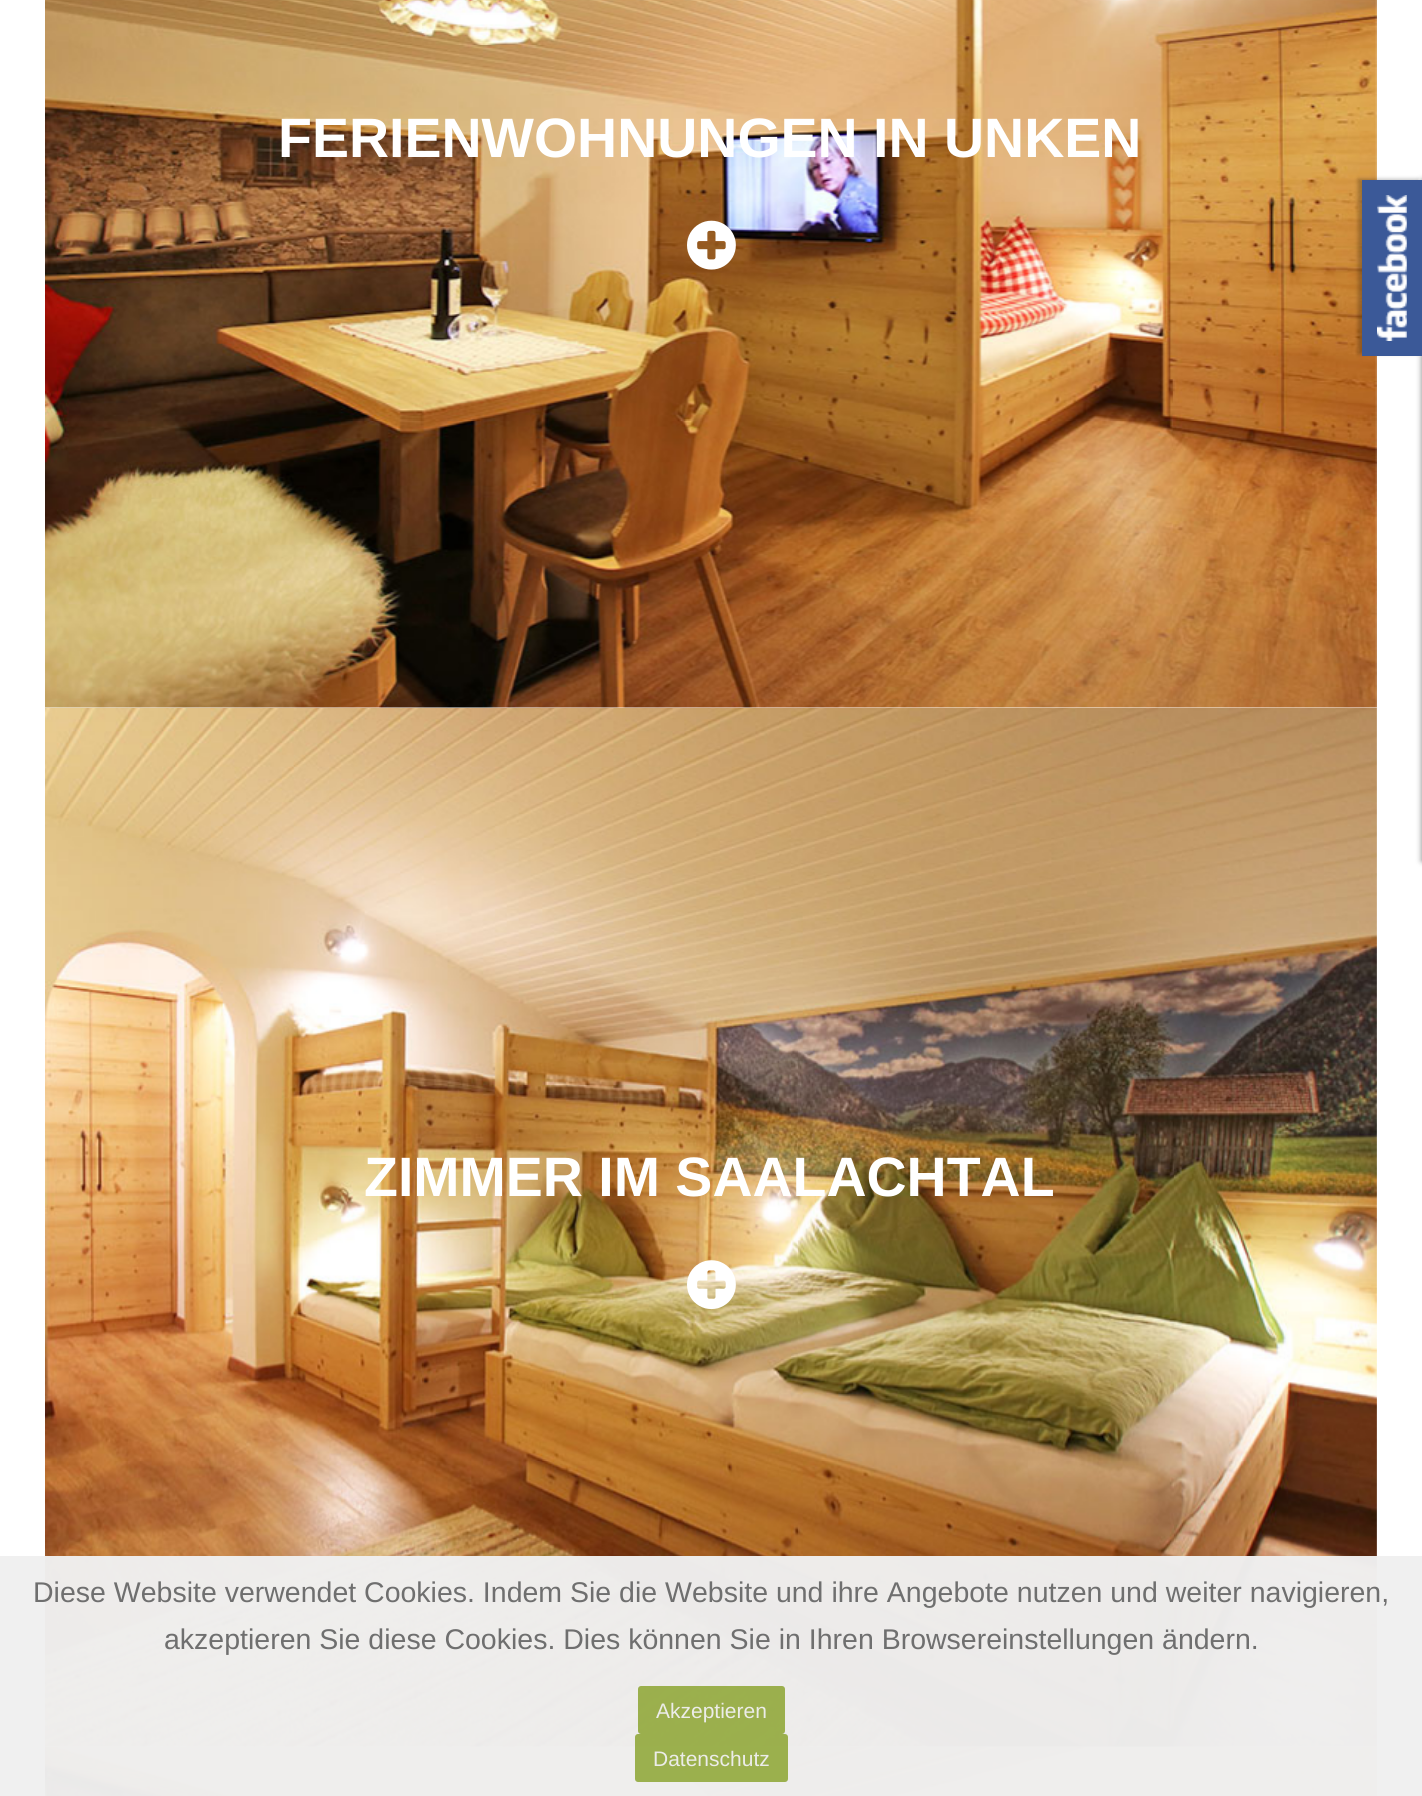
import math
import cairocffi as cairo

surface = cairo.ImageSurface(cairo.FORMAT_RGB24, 1422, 1796)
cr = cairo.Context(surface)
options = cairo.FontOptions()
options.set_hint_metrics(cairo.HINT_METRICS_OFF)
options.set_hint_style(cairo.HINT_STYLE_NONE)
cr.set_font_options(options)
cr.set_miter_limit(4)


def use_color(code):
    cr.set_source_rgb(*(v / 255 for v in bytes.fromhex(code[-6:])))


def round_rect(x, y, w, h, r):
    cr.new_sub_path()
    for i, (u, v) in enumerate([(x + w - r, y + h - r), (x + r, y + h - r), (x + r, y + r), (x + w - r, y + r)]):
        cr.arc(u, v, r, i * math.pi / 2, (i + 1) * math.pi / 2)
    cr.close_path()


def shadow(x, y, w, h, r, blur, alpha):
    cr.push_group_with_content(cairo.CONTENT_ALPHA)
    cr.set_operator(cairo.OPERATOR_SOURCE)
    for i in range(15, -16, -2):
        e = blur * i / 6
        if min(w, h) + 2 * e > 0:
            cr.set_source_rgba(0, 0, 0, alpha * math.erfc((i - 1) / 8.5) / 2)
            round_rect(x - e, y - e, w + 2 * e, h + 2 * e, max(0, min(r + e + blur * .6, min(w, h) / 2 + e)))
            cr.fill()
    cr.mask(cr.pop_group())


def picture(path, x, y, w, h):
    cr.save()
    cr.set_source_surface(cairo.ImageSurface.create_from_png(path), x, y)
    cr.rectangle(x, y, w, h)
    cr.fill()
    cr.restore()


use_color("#ffffff")
cr.paint()
picture("img1.png", 45, 0, 1332, 708)
cr.select_font_face("Liberation Sans", cairo.FONT_SLANT_NORMAL, cairo.FONT_WEIGHT_BOLD)
cr.set_font_size(55.5)
use_color("#ffffff")
cr.move_to(278, 157)
cr.show_text("FERIENWOHNUNGEN IN UNKEN")
picture("img2.png", 687, 220, 49, 50)
picture("img3.png", 45, 708, 1332, 1039)
cr.move_to(364, 1196)
cr.show_text("ZIMMER IM SAALACHTAL")
picture("img4.png", 687, 1260, 49, 50)
picture("img5.png", 45, 1747, 1332, 49)
use_color("#000000")
shadow(1422, 180, 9, 681, 0, 3, 0.5)
shadow(1358, 179, 60, 175, 0, 2, 0.25)
use_color("#3b5998")
cr.rectangle(1362, 180, 60, 176)
cr.fill()
picture("img6.png", 1377, 195, 30, 146)
cr.set_source_rgba(0.941, 0.941, 0.941, 0.97)
cr.rectangle(0, 1556, 1422, 240)
cr.fill()
cr.select_font_face("Liberation Sans")
cr.set_font_size(28.5)
use_color("#6f6f6f")
cr.move_to(33, 1602)
cr.show_text("Diese Website verwendet Cookies. Indem Sie die Website und ihre Angebote nutzen und weiter navigieren,")
cr.move_to(164, 1649)
cr.show_text("akzeptieren Sie diese Cookies. Dies können Sie in Ihren Browsereinstellungen ändern.")
cr.set_source_rgba(0.6, 0.682, 0.286, 0.97)
round_rect(638, 1686, 147, 48, 3)
cr.fill()
cr.set_font_size(21)
use_color("#ecece9")
cr.move_to(656, 1718)
cr.show_text("Akzeptieren")
cr.set_source_rgba(0.6, 0.682, 0.286, 0.97)
round_rect(635, 1734, 153, 48, 3)
cr.fill()
use_color("#ecece9")
cr.move_to(653, 1766)
cr.show_text("Datenschutz")
surface.write_to_png("result.png")
